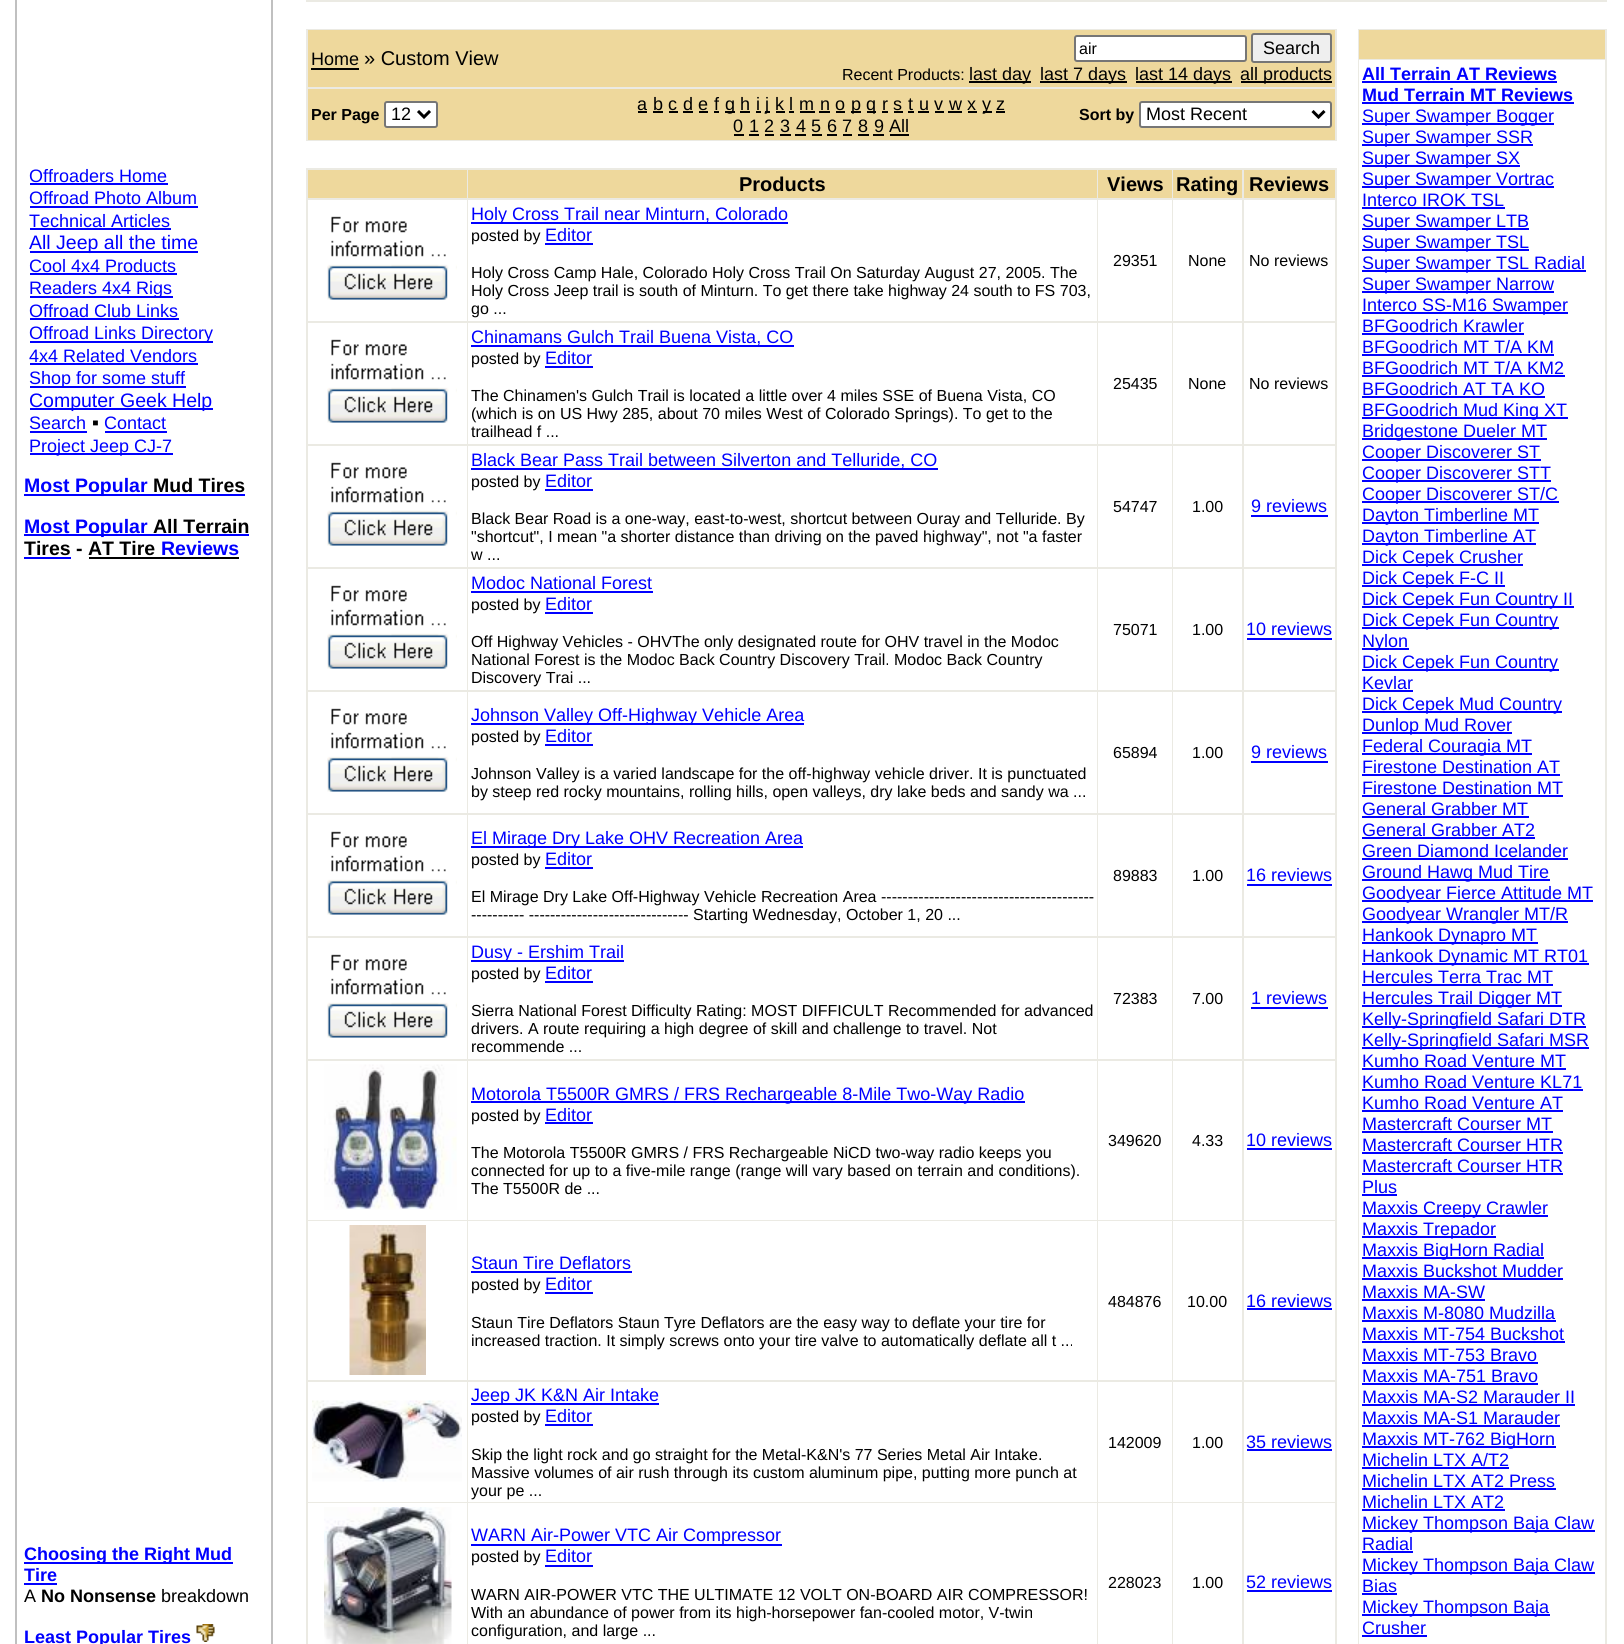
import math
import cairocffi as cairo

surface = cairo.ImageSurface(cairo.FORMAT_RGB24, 1624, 1644)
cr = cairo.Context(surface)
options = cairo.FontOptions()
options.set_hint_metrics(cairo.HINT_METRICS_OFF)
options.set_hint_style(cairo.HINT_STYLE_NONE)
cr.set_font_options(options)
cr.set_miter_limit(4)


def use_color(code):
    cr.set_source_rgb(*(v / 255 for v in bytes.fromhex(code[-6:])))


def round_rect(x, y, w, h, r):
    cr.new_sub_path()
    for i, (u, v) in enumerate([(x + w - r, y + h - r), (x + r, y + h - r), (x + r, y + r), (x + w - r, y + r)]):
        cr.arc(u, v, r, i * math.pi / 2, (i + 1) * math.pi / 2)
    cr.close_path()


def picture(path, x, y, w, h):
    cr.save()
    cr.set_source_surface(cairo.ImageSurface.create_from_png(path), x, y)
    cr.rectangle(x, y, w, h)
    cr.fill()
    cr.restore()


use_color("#ffffff")
cr.paint()
cr.rectangle(16, -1, 256, 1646)
use_color("#c0c0c0")
cr.stroke()
cr.select_font_face("Liberation Sans")
cr.set_font_size(18)
use_color("#0000ff")
cr.move_to(29, 182)
cr.show_text("Offroaders Home")
cr.rectangle(30, 183, 138, 2)
cr.fill()
cr.move_to(29, 204)
cr.show_text("Offroad Photo Album")
cr.rectangle(30, 206, 168, 2)
cr.fill()
cr.move_to(29, 227)
cr.show_text("Technical Articles")
cr.rectangle(30, 228, 141, 2)
cr.fill()
cr.rectangle(30, 251, 168, 2)
cr.fill()
cr.set_font_size(19.5)
cr.move_to(29, 249)
cr.show_text("All Jeep all the time")
cr.set_font_size(18)
cr.move_to(29, 272)
cr.show_text("Cool 4x4 Products")
cr.rectangle(30, 273, 147, 2)
cr.fill()
cr.rectangle(30, 296, 143, 2)
cr.fill()
cr.move_to(29, 294)
cr.show_text("Readers 4x4 Rigs")
cr.move_to(29, 317)
cr.show_text("Offroad Club Links")
cr.rectangle(30, 318, 149, 2)
cr.fill()
cr.rectangle(30, 341, 183, 2)
cr.fill()
cr.move_to(29, 339)
cr.show_text("Offroad Links Directory")
cr.move_to(29, 362)
cr.show_text("4x4 Related Vendors")
cr.rectangle(30, 363, 168, 2)
cr.fill()
cr.rectangle(30, 386, 156, 2)
cr.fill()
cr.move_to(29, 384)
cr.show_text("Shop for some stuff")
cr.rectangle(30, 408, 183, 2)
cr.fill()
cr.set_font_size(19.5)
cr.move_to(29, 407)
cr.show_text("Computer Geek Help")
cr.set_font_size(18)
cr.move_to(29, 429)
cr.show_text("Search")
cr.rectangle(30, 431, 57, 2)
cr.fill()
cr.set_font_size(19.5)
use_color("#000000")
cr.move_to(92, 429)
cr.show_text("▪")
cr.set_font_size(18)
use_color("#0000ff")
cr.move_to(104, 429)
cr.show_text("Contact")
cr.rectangle(105, 431, 62, 2)
cr.fill()
cr.rectangle(30, 453, 143, 2)
cr.fill()
cr.move_to(29, 452)
cr.show_text("Project Jeep CJ-7")
cr.rectangle(24, 494, 123, 2)
cr.fill()
cr.select_font_face("Liberation Sans", cairo.FONT_SLANT_NORMAL, cairo.FONT_WEIGHT_BOLD)
cr.set_font_size(19.5)
cr.move_to(24, 492)
cr.show_text("Most Popular")
cr.rectangle(147, 494, 98, 2)
cr.fill()
use_color("#000000")
cr.move_to(153, 492)
cr.show_text("Mud Tires")
use_color("#0000ff")
cr.rectangle(24, 534, 123, 2)
cr.fill()
cr.move_to(24, 533)
cr.show_text("Most Popular")
cr.rectangle(147, 534, 102, 2)
cr.fill()
use_color("#000000")
cr.move_to(153, 533)
cr.show_text("All Terrain")
cr.move_to(24, 555)
cr.show_text("Tires - AT Tire")
use_color("#0000ff")
cr.rectangle(24, 557, 47, 2)
cr.fill()
cr.move_to(161, 555)
cr.show_text("Reviews")
use_color("#000000")
cr.rectangle(89, 557, 150, 2)
cr.fill()
use_color("#0000ff")
cr.rectangle(24, 1562, 209, 2)
cr.fill()
cr.set_font_size(18)
cr.move_to(24, 1560)
cr.show_text("Choosing the Right Mud")
cr.move_to(24, 1581)
cr.show_text("Tire")
cr.rectangle(24, 1583, 33, 2)
cr.fill()
cr.select_font_face("Liberation Sans")
use_color("#000000")
cr.move_to(24, 1602)
cr.show_text("A")
cr.select_font_face("Liberation Sans", cairo.FONT_SLANT_NORMAL, cairo.FONT_WEIGHT_BOLD)
cr.move_to(41, 1602)
cr.show_text("No Nonsense")
cr.select_font_face("Liberation Sans")
cr.move_to(161, 1602)
cr.show_text("breakdown")
cr.select_font_face("Liberation Sans", cairo.FONT_SLANT_NORMAL, cairo.FONT_WEIGHT_BOLD)
use_color("#0000ff")
cr.move_to(24, 1643)
cr.show_text("Least Popular Tires")
picture("img1.png", 196, 1624, 19, 18)
use_color("#ebeae3")
cr.rectangle(306, 0, 1301, 2)
cr.fill()
cr.rectangle(306, 29, 1031, 112)
cr.fill()
use_color("#eed89c")
cr.rectangle(308, 30, 1027, 57)
cr.fill()
cr.select_font_face("Liberation Sans")
use_color("#000000")
cr.move_to(311, 65)
cr.show_text("Home")
cr.rectangle(311, 68, 48, 2)
cr.fill()
cr.set_font_size(20)
cr.move_to(364, 65)
cr.show_text("» Custom View")
use_color("#ffffff")
round_rect(1075, 36, 171, 25, 2)
cr.fill_preserve()
use_color("#767676")
cr.stroke()
cr.set_font_size(16)
use_color("#000000")
cr.move_to(1079, 54)
cr.show_text("air")
use_color("#efefef")
round_rect(1252, 34, 79, 28, 2)
cr.fill_preserve()
use_color("#767676")
cr.stroke()
cr.set_font_size(18)
use_color("#000000")
cr.move_to(1263, 54)
cr.show_text("Search")
cr.set_font_size(16)
cr.move_to(842, 80)
cr.show_text("Recent Products:")
cr.rectangle(969, 81, 62, 2)
cr.fill()
cr.set_font_size(18)
cr.move_to(969, 80)
cr.show_text("last day")
cr.rectangle(1040, 81, 87, 2)
cr.fill()
cr.move_to(1040, 80)
cr.show_text("last 7 days")
cr.rectangle(1136, 81, 96, 2)
cr.fill()
cr.move_to(1135, 80)
cr.show_text("last 14 days")
cr.rectangle(1241, 81, 91, 2)
cr.fill()
cr.move_to(1240, 80)
cr.show_text("all products")
use_color("#eed89c")
cr.rectangle(308, 89, 1027, 51)
cr.fill()
cr.select_font_face("Liberation Sans", cairo.FONT_SLANT_NORMAL, cairo.FONT_WEIGHT_BOLD)
cr.set_font_size(16)
use_color("#000000")
cr.move_to(311, 120)
cr.show_text("Per Page")
use_color("#ffffff")
round_rect(385, 102, 52, 25, 2)
cr.fill_preserve()
use_color("#767676")
cr.stroke()
cr.new_path()
cr.move_to(418, 111)
cr.line_to(424, 117)
cr.line_to(430, 111)
use_color("#000000")
cr.set_line_width(3)
cr.stroke()
cr.select_font_face("Liberation Sans")
cr.set_font_size(18)
cr.move_to(391, 120)
cr.show_text("12")
cr.move_to(637, 110)
cr.show_text("a")
cr.rectangle(638, 111, 9, 2)
cr.fill()
cr.move_to(653, 110)
cr.show_text("b")
cr.rectangle(653, 111, 10, 2)
cr.fill()
cr.move_to(668, 110)
cr.show_text("c")
cr.rectangle(669, 111, 9, 2)
cr.fill()
cr.move_to(683, 110)
cr.show_text("d")
cr.rectangle(683, 111, 10, 2)
cr.fill()
cr.move_to(698, 110)
cr.show_text("e")
cr.rectangle(699, 111, 9, 2)
cr.fill()
cr.move_to(714, 110)
cr.show_text("f")
cr.rectangle(725, 111, 10, 2)
cr.fill()
cr.move_to(725, 110)
cr.show_text("g")
cr.rectangle(714, 111, 5, 2)
cr.fill()
cr.rectangle(740, 111, 10, 2)
cr.fill()
cr.move_to(740, 110)
cr.show_text("h")
cr.move_to(756, 110)
cr.show_text("i")
cr.rectangle(765, 111, 5, 2)
cr.fill()
cr.move_to(765, 110)
cr.show_text("j")
cr.rectangle(756, 111, 5, 2)
cr.fill()
cr.move_to(775, 110)
cr.show_text("k")
cr.rectangle(776, 111, 9, 2)
cr.fill()
cr.move_to(789, 110)
cr.show_text("l")
cr.rectangle(789, 111, 5, 2)
cr.fill()
cr.move_to(799, 110)
cr.show_text("m")
cr.rectangle(800, 111, 15, 2)
cr.fill()
cr.move_to(820, 110)
cr.show_text("n")
cr.rectangle(819, 111, 11, 2)
cr.fill()
cr.move_to(835, 110)
cr.show_text("o")
cr.rectangle(836, 111, 9, 2)
cr.fill()
cr.rectangle(851, 111, 10, 2)
cr.fill()
cr.move_to(851, 110)
cr.show_text("p")
cr.rectangle(867, 111, 9, 2)
cr.fill()
cr.move_to(866, 110)
cr.show_text("q")
cr.move_to(882, 110)
cr.show_text("r")
cr.rectangle(882, 111, 6, 2)
cr.fill()
cr.move_to(893, 110)
cr.show_text("s")
cr.rectangle(894, 111, 9, 2)
cr.fill()
cr.move_to(908, 110)
cr.show_text("t")
cr.rectangle(908, 111, 6, 2)
cr.fill()
cr.move_to(919, 110)
cr.show_text("u")
cr.rectangle(918, 111, 11, 2)
cr.fill()
cr.move_to(934, 110)
cr.show_text("v")
cr.rectangle(935, 111, 9, 2)
cr.fill()
cr.move_to(949, 110)
cr.show_text("w")
cr.rectangle(948, 111, 14, 2)
cr.fill()
cr.move_to(967, 110)
cr.show_text("x")
cr.rectangle(968, 111, 9, 2)
cr.fill()
cr.rectangle(983, 111, 9, 2)
cr.fill()
cr.move_to(982, 110)
cr.show_text("y")
cr.move_to(996, 110)
cr.show_text("z")
cr.rectangle(996, 111, 9, 2)
cr.fill()
cr.move_to(733, 132)
cr.show_text("0")
cr.rectangle(734, 134, 10, 2)
cr.fill()
cr.move_to(749, 132)
cr.show_text("1")
cr.rectangle(749, 134, 10, 2)
cr.fill()
cr.move_to(764, 132)
cr.show_text("2")
cr.rectangle(765, 134, 9, 2)
cr.fill()
cr.move_to(780, 132)
cr.show_text("3")
cr.rectangle(780, 134, 11, 2)
cr.fill()
cr.move_to(796, 132)
cr.show_text("4")
cr.rectangle(795, 134, 11, 2)
cr.fill()
cr.move_to(811, 132)
cr.show_text("5")
cr.rectangle(812, 134, 10, 2)
cr.fill()
cr.move_to(827, 132)
cr.show_text("6")
cr.rectangle(827, 134, 10, 2)
cr.fill()
cr.move_to(842, 132)
cr.show_text("7")
cr.rectangle(843, 134, 9, 2)
cr.fill()
cr.move_to(858, 132)
cr.show_text("8")
cr.rectangle(858, 134, 11, 2)
cr.fill()
cr.move_to(874, 132)
cr.show_text("9")
cr.rectangle(873, 134, 11, 2)
cr.fill()
cr.move_to(889, 132)
cr.show_text("All")
cr.rectangle(890, 134, 19, 2)
cr.fill()
cr.select_font_face("Liberation Sans", cairo.FONT_SLANT_NORMAL, cairo.FONT_WEIGHT_BOLD)
cr.set_font_size(16)
cr.move_to(1079, 120)
cr.show_text("Sort by")
use_color("#ffffff")
round_rect(1140, 102, 191, 25, 2)
cr.fill_preserve()
use_color("#767676")
cr.set_line_width(2)
cr.stroke()
cr.new_path()
cr.move_to(1312.5, 111)
cr.line_to(1318.5, 117)
cr.line_to(1324.5, 111)
use_color("#000000")
cr.set_line_width(3)
cr.stroke()
cr.select_font_face("Liberation Sans")
cr.set_font_size(18)
cr.move_to(1146, 120)
cr.show_text("Most Recent")
use_color("#ebeae3")
cr.rectangle(306, 168, 1031, 1476)
cr.fill()
use_color("#eed89c")
cr.rectangle(308, 170, 159, 28)
cr.fill()
cr.rectangle(468, 170, 629, 28)
cr.fill()
cr.select_font_face("Liberation Sans", cairo.FONT_SLANT_NORMAL, cairo.FONT_WEIGHT_BOLD)
cr.set_font_size(20)
use_color("#000000")
cr.move_to(739, 191)
cr.show_text("Products")
use_color("#eed89c")
cr.rectangle(1098, 170, 74, 28)
cr.fill()
use_color("#000000")
cr.move_to(1107, 191)
cr.show_text("Views")
use_color("#eed89c")
cr.rectangle(1173, 170, 69, 28)
cr.fill()
use_color("#000000")
cr.move_to(1176, 191)
cr.show_text("Rating")
use_color("#eed89c")
cr.rectangle(1244, 170, 91, 28)
cr.fill()
use_color("#000000")
cr.move_to(1249, 191)
cr.show_text("Reviews")
use_color("#ffffff")
cr.rectangle(308, 200, 159, 121)
cr.fill()
picture("img2.png", 327, 216, 130, 84)
cr.rectangle(468, 200, 629, 121)
cr.fill()
use_color("#0000ff")
cr.rectangle(471, 222, 317, 2)
cr.fill()
cr.select_font_face("Liberation Sans")
cr.set_font_size(18)
cr.move_to(471, 220)
cr.show_text("Holy Cross Trail near Minturn, Colorado")
cr.set_font_size(16)
use_color("#000000")
cr.move_to(471, 241)
cr.show_text("posted by")
use_color("#0000ff")
cr.rectangle(545, 243, 48, 2)
cr.fill()
cr.set_font_size(18)
cr.move_to(545, 241)
cr.show_text("Editor")
cr.set_font_size(16)
use_color("#000000")
cr.move_to(471, 278)
cr.show_text("Holy Cross Camp Hale, Colorado Holy Cross Trail On Saturday August 27, 2005. The")
cr.move_to(471, 296)
cr.show_text("Holy Cross Jeep trail is south of Minturn. To get there take highway 24 south to FS 703,")
cr.move_to(471, 314)
cr.show_text("go ...")
use_color("#ffffff")
cr.rectangle(1098, 200, 74, 121)
cr.fill()
use_color("#000000")
cr.move_to(1113, 266)
cr.show_text("29351")
use_color("#ffffff")
cr.rectangle(1173, 200, 69, 121)
cr.fill()
use_color("#000000")
cr.move_to(1188, 266)
cr.show_text("None")
use_color("#ffffff")
cr.rectangle(1244, 200, 91, 121)
cr.fill()
use_color("#000000")
cr.move_to(1249, 266)
cr.show_text("No reviews")
use_color("#ffffff")
cr.rectangle(308, 323, 159, 121)
cr.fill()
picture("img2.png", 327, 339, 130, 84)
cr.rectangle(468, 323, 629, 121)
cr.fill()
use_color("#0000ff")
cr.rectangle(471, 345, 323, 2)
cr.fill()
cr.set_font_size(18)
cr.move_to(471, 343)
cr.show_text("Chinamans Gulch Trail Buena Vista, CO")
cr.set_font_size(16)
use_color("#000000")
cr.move_to(471, 364)
cr.show_text("posted by")
use_color("#0000ff")
cr.rectangle(545, 366, 48, 2)
cr.fill()
cr.set_font_size(18)
cr.move_to(545, 364)
cr.show_text("Editor")
cr.set_font_size(16)
use_color("#000000")
cr.move_to(471, 401)
cr.show_text("The Chinamen's Gulch Trail is located a little over 4 miles SSE of Buena Vista, CO")
cr.move_to(471, 419)
cr.show_text("(which is on US Hwy 285, about 70 miles West of Colorado Springs). To get to the")
cr.move_to(471, 437)
cr.show_text("trailhead f ...")
use_color("#ffffff")
cr.rectangle(1098, 323, 74, 121)
cr.fill()
use_color("#000000")
cr.move_to(1113, 389)
cr.show_text("25435")
use_color("#ffffff")
cr.rectangle(1173, 323, 69, 121)
cr.fill()
use_color("#000000")
cr.move_to(1188, 389)
cr.show_text("None")
use_color("#ffffff")
cr.rectangle(1244, 323, 91, 121)
cr.fill()
use_color("#000000")
cr.move_to(1249, 389)
cr.show_text("No reviews")
use_color("#ffffff")
cr.rectangle(308, 446, 159, 121)
cr.fill()
picture("img2.png", 327, 462, 130, 84)
cr.rectangle(468, 446, 629, 121)
cr.fill()
use_color("#0000ff")
cr.rectangle(471, 468, 467, 2)
cr.fill()
cr.set_font_size(18)
cr.move_to(471, 466)
cr.show_text("Black Bear Pass Trail between Silverton and Telluride, CO")
cr.set_font_size(16)
use_color("#000000")
cr.move_to(471, 487)
cr.show_text("posted by")
use_color("#0000ff")
cr.rectangle(545, 489, 48, 2)
cr.fill()
cr.set_font_size(18)
cr.move_to(545, 487)
cr.show_text("Editor")
cr.set_font_size(16)
use_color("#000000")
cr.move_to(471, 524)
cr.show_text("Black Bear Road is a one-way, east-to-west, shortcut between Ouray and Telluride. By")
cr.move_to(471, 542)
cr.show_text("\"shortcut\", I mean \"a shorter distance than driving on the paved highway\", not \"a faster")
cr.move_to(471, 560)
cr.show_text("w ...")
use_color("#ffffff")
cr.rectangle(1098, 446, 74, 121)
cr.fill()
use_color("#000000")
cr.move_to(1113, 512)
cr.show_text("54747")
use_color("#ffffff")
cr.rectangle(1173, 446, 69, 121)
cr.fill()
use_color("#000000")
cr.move_to(1192, 512)
cr.show_text("1.00")
use_color("#ffffff")
cr.rectangle(1244, 446, 91, 121)
cr.fill()
cr.set_font_size(18)
use_color("#0000ff")
cr.move_to(1251, 512)
cr.show_text("9 reviews")
cr.rectangle(1251, 515, 77, 2)
cr.fill()
use_color("#ffffff")
cr.rectangle(308, 569, 159, 121)
cr.fill()
picture("img2.png", 327, 585, 130, 84)
cr.rectangle(468, 569, 629, 121)
cr.fill()
use_color("#0000ff")
cr.move_to(471, 589)
cr.show_text("Modoc National Forest")
cr.rectangle(471, 591, 182, 2)
cr.fill()
cr.set_font_size(16)
use_color("#000000")
cr.move_to(471, 610)
cr.show_text("posted by")
use_color("#0000ff")
cr.rectangle(545, 612, 48, 2)
cr.fill()
cr.set_font_size(18)
cr.move_to(545, 610)
cr.show_text("Editor")
cr.set_font_size(16)
use_color("#000000")
cr.move_to(471, 647)
cr.show_text("Off Highway Vehicles - OHVThe only designated route for OHV travel in the Modoc")
cr.move_to(471, 665)
cr.show_text("National Forest is the Modoc Back Country Discovery Trail.")
cr.move_to(894, 665)
cr.show_text("Modoc Back Country")
cr.move_to(471, 683)
cr.show_text("Discovery Trai ...")
use_color("#ffffff")
cr.rectangle(1098, 569, 74, 121)
cr.fill()
use_color("#000000")
cr.move_to(1113, 635)
cr.show_text("75071")
use_color("#ffffff")
cr.rectangle(1173, 569, 69, 121)
cr.fill()
use_color("#000000")
cr.move_to(1192, 635)
cr.show_text("1.00")
use_color("#ffffff")
cr.rectangle(1244, 569, 91, 121)
cr.fill()
cr.set_font_size(18)
use_color("#0000ff")
cr.move_to(1246, 635)
cr.show_text("10 reviews")
cr.rectangle(1247, 638, 85, 2)
cr.fill()
use_color("#ffffff")
cr.rectangle(308, 692, 159, 121)
cr.fill()
picture("img2.png", 327, 708, 130, 84)
cr.rectangle(468, 692, 629, 121)
cr.fill()
use_color("#0000ff")
cr.rectangle(471, 723, 333, 2)
cr.fill()
cr.move_to(471, 721)
cr.show_text("Johnson Valley Off-Highway Vehicle Area")
cr.set_font_size(16)
use_color("#000000")
cr.move_to(471, 742)
cr.show_text("posted by")
use_color("#0000ff")
cr.rectangle(545, 744, 48, 2)
cr.fill()
cr.set_font_size(18)
cr.move_to(545, 742)
cr.show_text("Editor")
cr.set_font_size(16)
use_color("#000000")
cr.move_to(471, 779)
cr.show_text("Johnson Valley is a varied landscape for the off-highway vehicle driver. It is punctuated")
cr.move_to(471, 797)
cr.show_text("by steep red rocky mountains, rolling hills, open valleys, dry lake beds and sandy wa ...")
use_color("#ffffff")
cr.rectangle(1098, 692, 74, 121)
cr.fill()
use_color("#000000")
cr.move_to(1113, 758)
cr.show_text("65894")
use_color("#ffffff")
cr.rectangle(1173, 692, 69, 121)
cr.fill()
use_color("#000000")
cr.move_to(1192, 758)
cr.show_text("1.00")
use_color("#ffffff")
cr.rectangle(1244, 692, 91, 121)
cr.fill()
cr.set_font_size(18)
use_color("#0000ff")
cr.move_to(1251, 758)
cr.show_text("9 reviews")
cr.rectangle(1251, 761, 77, 2)
cr.fill()
use_color("#ffffff")
cr.rectangle(308, 815, 159, 121)
cr.fill()
picture("img2.png", 327, 831, 130, 84)
cr.rectangle(468, 815, 629, 121)
cr.fill()
use_color("#0000ff")
cr.rectangle(471, 846, 332, 2)
cr.fill()
cr.move_to(471, 844)
cr.show_text("El Mirage Dry Lake OHV Recreation Area")
cr.set_font_size(16)
use_color("#000000")
cr.move_to(471, 865)
cr.show_text("posted by")
use_color("#0000ff")
cr.rectangle(545, 867, 48, 2)
cr.fill()
cr.set_font_size(18)
cr.move_to(545, 865)
cr.show_text("Editor")
cr.set_font_size(16)
use_color("#000000")
cr.move_to(471, 902)
cr.show_text("El Mirage Dry Lake Off-Highway Vehicle Recreation Area")
cr.move_to(881, 902)
cr.show_text("----------------------------------------")
cr.move_to(471, 920)
cr.show_text("---------- ------------------------------ Starting Wednesday, October 1, 20 ...")
use_color("#ffffff")
cr.rectangle(1098, 815, 74, 121)
cr.fill()
use_color("#000000")
cr.move_to(1113, 881)
cr.show_text("89883")
use_color("#ffffff")
cr.rectangle(1173, 815, 69, 121)
cr.fill()
use_color("#000000")
cr.move_to(1192, 881)
cr.show_text("1.00")
use_color("#ffffff")
cr.rectangle(1244, 815, 91, 121)
cr.fill()
cr.set_font_size(18)
use_color("#0000ff")
cr.move_to(1246, 881)
cr.show_text("16 reviews")
cr.rectangle(1247, 884, 85, 2)
cr.fill()
use_color("#ffffff")
cr.rectangle(308, 938, 159, 121)
cr.fill()
picture("img2.png", 327, 954, 130, 84)
cr.rectangle(468, 938, 629, 121)
cr.fill()
use_color("#0000ff")
cr.rectangle(471, 960, 153, 2)
cr.fill()
cr.move_to(471, 958)
cr.show_text("Dusy - Ershim Trail")
cr.set_font_size(16)
use_color("#000000")
cr.move_to(471, 979)
cr.show_text("posted by")
use_color("#0000ff")
cr.rectangle(545, 981, 48, 2)
cr.fill()
cr.set_font_size(18)
cr.move_to(545, 979)
cr.show_text("Editor")
cr.set_font_size(16)
use_color("#000000")
cr.move_to(471, 1016)
cr.show_text("Sierra National Forest Difficulty Rating: MOST DIFFICULT Recommended for advanced")
cr.move_to(471, 1034)
cr.show_text("drivers. A route requiring a high degree of skill and challenge to travel. Not")
cr.move_to(471, 1052)
cr.show_text("recommende ...")
use_color("#ffffff")
cr.rectangle(1098, 938, 74, 121)
cr.fill()
use_color("#000000")
cr.move_to(1113, 1004)
cr.show_text("72383")
use_color("#ffffff")
cr.rectangle(1173, 938, 69, 121)
cr.fill()
use_color("#000000")
cr.move_to(1192, 1004)
cr.show_text("7.00")
use_color("#ffffff")
cr.rectangle(1244, 938, 91, 121)
cr.fill()
cr.set_font_size(18)
use_color("#0000ff")
cr.move_to(1251, 1004)
cr.show_text("1 reviews")
cr.rectangle(1251, 1007, 77, 2)
cr.fill()
use_color("#ffffff")
cr.rectangle(308, 1061, 159, 159)
cr.fill()
picture("img3.png", 324, 1064, 133, 146)
cr.rectangle(468, 1061, 629, 159)
cr.fill()
use_color("#0000ff")
cr.rectangle(471, 1101, 554, 2)
cr.fill()
cr.move_to(471, 1100)
cr.show_text("Motorola T5500R GMRS / FRS Rechargeable 8-Mile Two-Way Radio")
cr.set_font_size(16)
use_color("#000000")
cr.move_to(471, 1121)
cr.show_text("posted by")
use_color("#0000ff")
cr.rectangle(545, 1122, 48, 2)
cr.fill()
cr.set_font_size(18)
cr.move_to(545, 1121)
cr.show_text("Editor")
cr.set_font_size(16)
use_color("#000000")
cr.move_to(471, 1158)
cr.show_text("The Motorola T5500R GMRS / FRS Rechargeable NiCD two-way radio keeps you")
cr.move_to(471, 1176)
cr.show_text("connected for up to a five-mile range (range will vary based on terrain and conditions).")
cr.move_to(471, 1194)
cr.show_text("The T5500R de ...")
use_color("#ffffff")
cr.rectangle(1098, 1061, 74, 159)
cr.fill()
use_color("#000000")
cr.move_to(1108, 1146)
cr.show_text("349620")
use_color("#ffffff")
cr.rectangle(1173, 1061, 69, 159)
cr.fill()
use_color("#000000")
cr.move_to(1192, 1146)
cr.show_text("4.33")
use_color("#ffffff")
cr.rectangle(1244, 1061, 91, 159)
cr.fill()
cr.set_font_size(18)
use_color("#0000ff")
cr.move_to(1246, 1146)
cr.show_text("10 reviews")
cr.rectangle(1247, 1148, 85, 2)
cr.fill()
use_color("#ffffff")
cr.rectangle(308, 1221, 159, 159)
cr.fill()
picture("img4.png", 349, 1225, 77, 150)
cr.rectangle(468, 1221, 629, 159)
cr.fill()
use_color("#0000ff")
cr.move_to(471, 1269)
cr.show_text("Staun Tire Deflators")
cr.rectangle(471, 1271, 161, 2)
cr.fill()
cr.set_font_size(16)
use_color("#000000")
cr.move_to(471, 1290)
cr.show_text("posted by")
use_color("#0000ff")
cr.rectangle(545, 1292, 48, 2)
cr.fill()
cr.set_font_size(18)
cr.move_to(545, 1290)
cr.show_text("Editor")
cr.set_font_size(16)
use_color("#000000")
cr.move_to(471, 1328)
cr.show_text("Staun Tire Deflators Staun Tyre Deflators are the easy way to deflate your tire for")
cr.move_to(471, 1346)
cr.show_text("increased traction. It simply screws onto your tire valve to automatically deflate all t ...")
use_color("#ffffff")
cr.rectangle(1098, 1221, 74, 159)
cr.fill()
use_color("#000000")
cr.move_to(1108, 1307)
cr.show_text("484876")
use_color("#ffffff")
cr.rectangle(1173, 1221, 69, 159)
cr.fill()
use_color("#000000")
cr.move_to(1187, 1307)
cr.show_text("10.00")
use_color("#ffffff")
cr.rectangle(1244, 1221, 91, 159)
cr.fill()
cr.set_font_size(18)
use_color("#0000ff")
cr.move_to(1246, 1307)
cr.show_text("16 reviews")
cr.rectangle(1247, 1308, 85, 2)
cr.fill()
use_color("#ffffff")
cr.rectangle(308, 1382, 159, 120)
cr.fill()
picture("img5.png", 312, 1400, 150, 82)
cr.rectangle(468, 1382, 629, 120)
cr.fill()
use_color("#0000ff")
cr.rectangle(471, 1403, 188, 2)
cr.fill()
cr.move_to(471, 1401)
cr.show_text("Jeep JK K&N Air Intake")
cr.set_font_size(16)
use_color("#000000")
cr.move_to(471, 1422)
cr.show_text("posted by")
use_color("#0000ff")
cr.rectangle(545, 1424, 48, 2)
cr.fill()
cr.set_font_size(18)
cr.move_to(545, 1422)
cr.show_text("Editor")
cr.set_font_size(16)
use_color("#000000")
cr.move_to(471, 1460)
cr.show_text("Skip the light rock and go straight for the Metal-K&N's 77 Series Metal Air Intake.")
cr.move_to(471, 1478)
cr.show_text("Massive volumes of air rush through its custom aluminum pipe, putting more punch at")
cr.move_to(471, 1496)
cr.show_text("your pe ...")
use_color("#ffffff")
cr.rectangle(1098, 1382, 74, 120)
cr.fill()
use_color("#000000")
cr.move_to(1108, 1448)
cr.show_text("142009")
use_color("#ffffff")
cr.rectangle(1173, 1382, 69, 120)
cr.fill()
use_color("#000000")
cr.move_to(1192, 1448)
cr.show_text("1.00")
use_color("#ffffff")
cr.rectangle(1244, 1382, 91, 120)
cr.fill()
cr.set_font_size(18)
use_color("#0000ff")
cr.move_to(1246, 1448)
cr.show_text("35 reviews")
cr.rectangle(1247, 1449, 85, 2)
cr.fill()
use_color("#ffffff")
cr.rectangle(308, 1503, 159, 141)
cr.fill()
picture("img6.png", 324, 1507, 128, 137)
cr.rectangle(468, 1503, 629, 141)
cr.fill()
use_color("#0000ff")
cr.rectangle(471, 1544, 311, 2)
cr.fill()
cr.move_to(471, 1541)
cr.show_text("WARN Air-Power VTC Air Compressor")
cr.set_font_size(16)
use_color("#000000")
cr.move_to(471, 1562)
cr.show_text("posted by")
use_color("#0000ff")
cr.rectangle(545, 1565, 48, 2)
cr.fill()
cr.set_font_size(18)
cr.move_to(545, 1562)
cr.show_text("Editor")
cr.set_font_size(16)
use_color("#000000")
cr.move_to(471, 1600)
cr.show_text("WARN AIR-POWER VTC THE ULTIMATE 12 VOLT ON-BOARD AIR COMPRESSOR!")
cr.move_to(471, 1618)
cr.show_text("With an abundance of power from its high-horsepower fan-cooled motor, V-twin")
cr.move_to(471, 1636)
cr.show_text("configuration, and large ...")
use_color("#ffffff")
cr.rectangle(1098, 1503, 74, 141)
cr.fill()
use_color("#000000")
cr.move_to(1108, 1588)
cr.show_text("228023")
use_color("#ffffff")
cr.rectangle(1173, 1503, 69, 141)
cr.fill()
use_color("#000000")
cr.move_to(1192, 1588)
cr.show_text("1.00")
use_color("#ffffff")
cr.rectangle(1244, 1503, 91, 141)
cr.fill()
cr.set_font_size(18)
use_color("#0000ff")
cr.move_to(1246, 1588)
cr.show_text("52 reviews")
cr.rectangle(1247, 1590, 85, 2)
cr.fill()
use_color("#ebeae3")
cr.rectangle(1358, 29, 249, 1615)
cr.fill()
use_color("#eed89c")
cr.rectangle(1359, 30, 246, 29)
cr.fill()
use_color("#ffffff")
cr.rectangle(1359, 60, 246, 1584)
cr.fill()
cr.select_font_face("Liberation Sans", cairo.FONT_SLANT_NORMAL, cairo.FONT_WEIGHT_BOLD)
use_color("#0000ff")
cr.move_to(1362, 80)
cr.show_text("All Terrain AT Reviews")
cr.rectangle(1362, 81, 195, 2)
cr.fill()
cr.move_to(1362, 101)
cr.show_text("Mud Terrain MT Reviews")
cr.rectangle(1362, 102, 212, 2)
cr.fill()
cr.rectangle(1362, 123, 192, 2)
cr.fill()
cr.select_font_face("Liberation Sans")
cr.move_to(1362, 122)
cr.show_text("Super Swamper Bogger")
cr.rectangle(1362, 144, 171, 2)
cr.fill()
cr.move_to(1362, 143)
cr.show_text("Super Swamper SSR")
cr.rectangle(1362, 165, 158, 2)
cr.fill()
cr.move_to(1362, 164)
cr.show_text("Super Swamper SX")
cr.rectangle(1362, 186, 192, 2)
cr.fill()
cr.move_to(1362, 185)
cr.show_text("Super Swamper Vortrac")
cr.move_to(1362, 206)
cr.show_text("Interco IROK TSL")
cr.rectangle(1362, 207, 143, 2)
cr.fill()
cr.rectangle(1362, 228, 167, 2)
cr.fill()
cr.move_to(1362, 227)
cr.show_text("Super Swamper LTB")
cr.rectangle(1362, 249, 167, 2)
cr.fill()
cr.move_to(1362, 248)
cr.show_text("Super Swamper TSL")
cr.rectangle(1362, 270, 224, 2)
cr.fill()
cr.move_to(1362, 269)
cr.show_text("Super Swamper TSL Radial")
cr.rectangle(1362, 291, 192, 2)
cr.fill()
cr.move_to(1362, 290)
cr.show_text("Super Swamper Narrow")
cr.rectangle(1362, 312, 206, 2)
cr.fill()
cr.move_to(1362, 311)
cr.show_text("Interco SS-M16 Swamper")
cr.move_to(1362, 332)
cr.show_text("BFGoodrich Krawler")
cr.rectangle(1362, 333, 162, 2)
cr.fill()
cr.move_to(1362, 353)
cr.show_text("BFGoodrich MT T/A KM")
cr.rectangle(1362, 354, 192, 2)
cr.fill()
cr.move_to(1362, 374)
cr.show_text("BFGoodrich MT T/A KM2")
cr.rectangle(1362, 375, 203, 2)
cr.fill()
cr.move_to(1362, 395)
cr.show_text("BFGoodrich AT TA KO")
cr.rectangle(1362, 396, 183, 2)
cr.fill()
cr.rectangle(1362, 417, 206, 2)
cr.fill()
cr.move_to(1362, 416)
cr.show_text("BFGoodrich Mud King XT")
cr.rectangle(1362, 438, 185, 2)
cr.fill()
cr.move_to(1362, 437)
cr.show_text("Bridgestone Dueler MT")
cr.rectangle(1362, 459, 179, 2)
cr.fill()
cr.move_to(1362, 458)
cr.show_text("Cooper Discoverer ST")
cr.rectangle(1362, 480, 189, 2)
cr.fill()
cr.move_to(1362, 479)
cr.show_text("Cooper Discoverer STT")
cr.rectangle(1362, 501, 197, 2)
cr.fill()
cr.move_to(1362, 500)
cr.show_text("Cooper Discoverer ST/C")
cr.rectangle(1362, 522, 177, 2)
cr.fill()
cr.move_to(1362, 521)
cr.show_text("Dayton Timberline MT")
cr.rectangle(1362, 543, 174, 2)
cr.fill()
cr.move_to(1362, 542)
cr.show_text("Dayton Timberline AT")
cr.rectangle(1362, 564, 161, 2)
cr.fill()
cr.move_to(1362, 563)
cr.show_text("Dick Cepek Crusher")
cr.rectangle(1362, 585, 143, 2)
cr.fill()
cr.move_to(1362, 584)
cr.show_text("Dick Cepek F-C II")
cr.rectangle(1362, 606, 212, 2)
cr.fill()
cr.move_to(1362, 605)
cr.show_text("Dick Cepek Fun Country II")
cr.rectangle(1362, 627, 197, 2)
cr.fill()
cr.move_to(1362, 626)
cr.show_text("Dick Cepek Fun Country")
cr.rectangle(1362, 648, 47, 2)
cr.fill()
cr.move_to(1362, 647)
cr.show_text("Nylon")
cr.rectangle(1362, 669, 197, 2)
cr.fill()
cr.move_to(1362, 668)
cr.show_text("Dick Cepek Fun Country")
cr.move_to(1362, 689)
cr.show_text("Kevlar")
cr.rectangle(1362, 690, 51, 2)
cr.fill()
cr.rectangle(1362, 711, 200, 2)
cr.fill()
cr.move_to(1362, 710)
cr.show_text("Dick Cepek Mud Country")
cr.rectangle(1362, 732, 150, 2)
cr.fill()
cr.move_to(1362, 731)
cr.show_text("Dunlop Mud Rover")
cr.rectangle(1362, 753, 170, 2)
cr.fill()
cr.move_to(1362, 752)
cr.show_text("Federal Couragia MT")
cr.move_to(1362, 773)
cr.show_text("Firestone Destination AT")
cr.rectangle(1362, 774, 198, 2)
cr.fill()
cr.move_to(1362, 794)
cr.show_text("Firestone Destination MT")
cr.rectangle(1362, 795, 201, 2)
cr.fill()
cr.move_to(1362, 815)
cr.show_text("General Grabber MT")
cr.rectangle(1362, 816, 167, 2)
cr.fill()
cr.move_to(1362, 836)
cr.show_text("General Grabber AT2")
cr.rectangle(1362, 837, 173, 2)
cr.fill()
cr.move_to(1362, 857)
cr.show_text("Green Diamond Icelander")
cr.rectangle(1362, 858, 206, 2)
cr.fill()
cr.rectangle(1362, 879, 188, 2)
cr.fill()
cr.move_to(1362, 878)
cr.show_text("Ground Hawg Mud Tire")
cr.rectangle(1362, 900, 231, 2)
cr.fill()
cr.move_to(1362, 899)
cr.show_text("Goodyear Fierce Attitude MT")
cr.rectangle(1362, 921, 206, 2)
cr.fill()
cr.move_to(1362, 920)
cr.show_text("Goodyear Wrangler MT/R")
cr.rectangle(1362, 942, 176, 2)
cr.fill()
cr.move_to(1362, 941)
cr.show_text("Hankook Dynapro MT")
cr.rectangle(1362, 963, 227, 2)
cr.fill()
cr.move_to(1362, 962)
cr.show_text("Hankook Dynamic MT RT01")
cr.move_to(1362, 983)
cr.show_text("Hercules Terra Trac MT")
cr.rectangle(1362, 984, 191, 2)
cr.fill()
cr.rectangle(1362, 1005, 200, 2)
cr.fill()
cr.move_to(1362, 1004)
cr.show_text("Hercules Trail Digger MT")
cr.rectangle(1362, 1026, 224, 2)
cr.fill()
cr.move_to(1362, 1025)
cr.show_text("Kelly-Springfield Safari DTR")
cr.rectangle(1362, 1047, 227, 2)
cr.fill()
cr.move_to(1362, 1046)
cr.show_text("Kelly-Springfield Safari MSR")
cr.move_to(1362, 1067)
cr.show_text("Kumho Road Venture MT")
cr.rectangle(1362, 1068, 204, 2)
cr.fill()
cr.move_to(1362, 1088)
cr.show_text("Kumho Road Venture KL71")
cr.rectangle(1362, 1089, 221, 2)
cr.fill()
cr.move_to(1362, 1109)
cr.show_text("Kumho Road Venture AT")
cr.rectangle(1362, 1110, 201, 2)
cr.fill()
cr.move_to(1362, 1130)
cr.show_text("Mastercraft Courser MT")
cr.rectangle(1362, 1131, 191, 2)
cr.fill()
cr.move_to(1362, 1151)
cr.show_text("Mastercraft Courser HTR")
cr.rectangle(1362, 1152, 201, 2)
cr.fill()
cr.move_to(1362, 1172)
cr.show_text("Mastercraft Courser HTR")
cr.rectangle(1362, 1173, 201, 2)
cr.fill()
cr.move_to(1362, 1193)
cr.show_text("Plus")
cr.rectangle(1362, 1194, 35, 2)
cr.fill()
cr.rectangle(1362, 1215, 186, 2)
cr.fill()
cr.move_to(1362, 1214)
cr.show_text("Maxxis Creepy Crawler")
cr.rectangle(1362, 1236, 134, 2)
cr.fill()
cr.move_to(1362, 1235)
cr.show_text("Maxxis Trepador")
cr.rectangle(1362, 1257, 182, 2)
cr.fill()
cr.move_to(1362, 1256)
cr.show_text("Maxxis BigHorn Radial")
cr.move_to(1362, 1277)
cr.show_text("Maxxis Buckshot Mudder")
cr.rectangle(1362, 1278, 201, 2)
cr.fill()
cr.move_to(1362, 1298)
cr.show_text("Maxxis MA-SW")
cr.rectangle(1362, 1299, 123, 2)
cr.fill()
cr.move_to(1362, 1319)
cr.show_text("Maxxis M-8080 Mudzilla")
cr.rectangle(1362, 1320, 194, 2)
cr.fill()
cr.move_to(1362, 1340)
cr.show_text("Maxxis MT-754 Buckshot")
cr.rectangle(1362, 1341, 203, 2)
cr.fill()
cr.move_to(1362, 1361)
cr.show_text("Maxxis MT-753 Bravo")
cr.rectangle(1362, 1362, 176, 2)
cr.fill()
cr.move_to(1362, 1382)
cr.show_text("Maxxis MA-751 Bravo")
cr.rectangle(1362, 1383, 176, 2)
cr.fill()
cr.move_to(1362, 1403)
cr.show_text("Maxxis MA-S2 Marauder II")
cr.rectangle(1362, 1404, 213, 2)
cr.fill()
cr.move_to(1362, 1424)
cr.show_text("Maxxis MA-S1 Marauder")
cr.rectangle(1362, 1425, 198, 2)
cr.fill()
cr.rectangle(1362, 1446, 194, 2)
cr.fill()
cr.move_to(1362, 1445)
cr.show_text("Maxxis MT-762 BigHorn")
cr.move_to(1362, 1466)
cr.show_text("Michelin LTX A/T2")
cr.rectangle(1362, 1467, 147, 2)
cr.fill()
cr.move_to(1362, 1487)
cr.show_text("Michelin LTX AT2 Press")
cr.rectangle(1362, 1488, 194, 2)
cr.fill()
cr.move_to(1362, 1508)
cr.show_text("Michelin LTX AT2")
cr.rectangle(1362, 1509, 143, 2)
cr.fill()
cr.rectangle(1362, 1530, 233, 2)
cr.fill()
cr.move_to(1362, 1529)
cr.show_text("Mickey Thompson Baja Claw")
cr.move_to(1362, 1550)
cr.show_text("Radial")
cr.rectangle(1362, 1551, 51, 2)
cr.fill()
cr.rectangle(1362, 1572, 233, 2)
cr.fill()
cr.move_to(1362, 1571)
cr.show_text("Mickey Thompson Baja Claw")
cr.move_to(1362, 1592)
cr.show_text("Bias")
cr.rectangle(1362, 1593, 35, 2)
cr.fill()
cr.rectangle(1362, 1614, 188, 2)
cr.fill()
cr.move_to(1362, 1613)
cr.show_text("Mickey Thompson Baja")
cr.move_to(1362, 1634)
cr.show_text("Crusher")
cr.rectangle(1362, 1635, 65, 2)
cr.fill()
surface.write_to_png("result.png")
